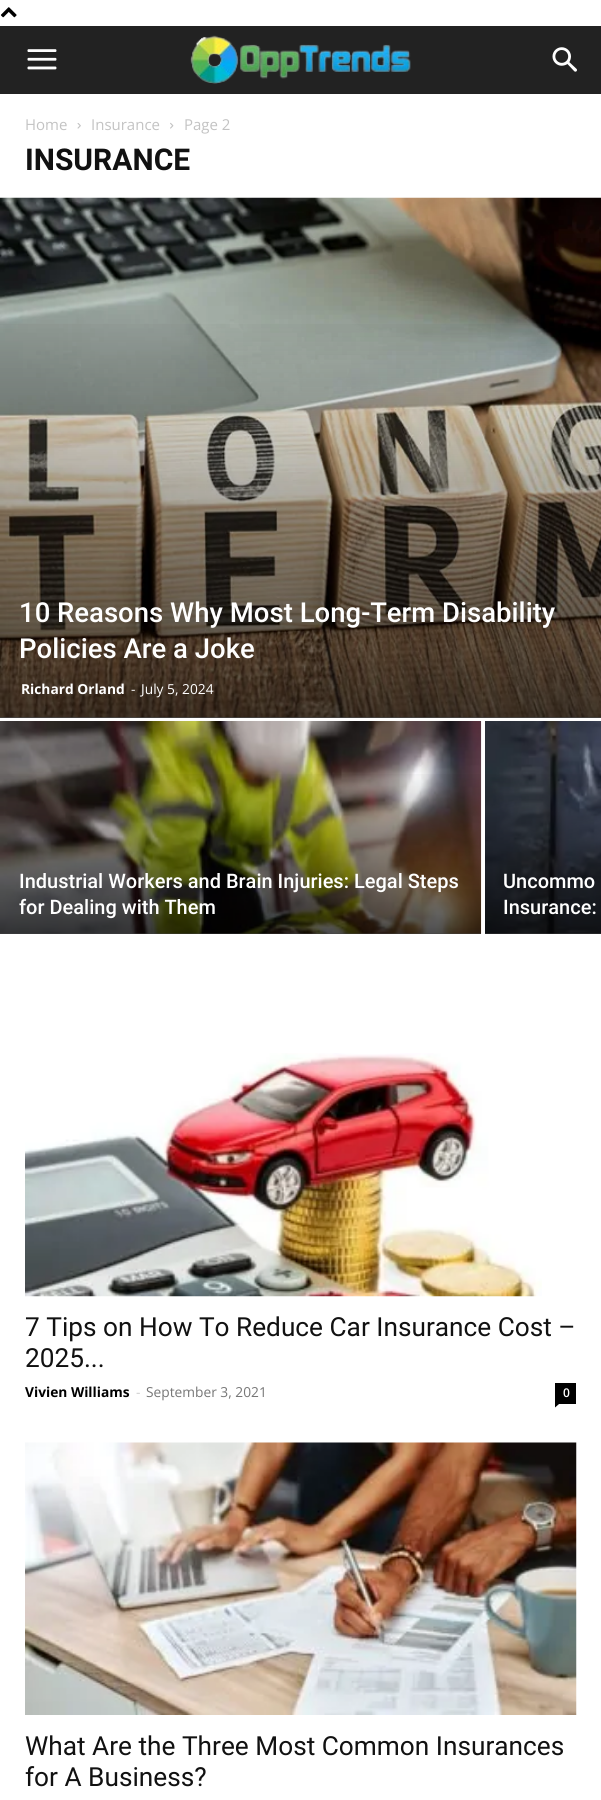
import math
import cairocffi as cairo

surface = cairo.ImageSurface(cairo.FORMAT_RGB24, 601, 1800)
cr = cairo.Context(surface)
options = cairo.FontOptions()
options.set_hint_metrics(cairo.HINT_METRICS_OFF)
options.set_hint_style(cairo.HINT_STYLE_NONE)
cr.set_font_options(options)
cr.set_miter_limit(4)


def use_color(code):
    cr.set_source_rgb(*(v / 255 for v in bytes.fromhex(code[-6:])))


def picture(path, x, y, w, h):
    cr.save()
    cr.set_source_surface(cairo.ImageSurface.create_from_png(path), x, y)
    cr.rectangle(x, y, w, h)
    cr.fill()
    cr.restore()


use_color("#ffffff")
cr.paint()
picture("img1.png", 0, 7, 17, 11)
use_color("#222222")
cr.rectangle(0, 26, 601, 68)
cr.fill()
picture("img2.png", 27, 49, 30, 21)
picture("img3.png", 190, 35, 221, 49)
picture("img4.png", 552, 47, 25, 25)
cr.select_font_face("Open Sans")
cr.set_font_size(15)
use_color("#c3c3c3")
cr.move_to(25, 130)
cr.show_text("Home")
picture("img5.png", 77, 123, 4, 6)
cr.move_to(91, 130)
cr.show_text("Insurance")
picture("img6.png", 170, 122, 4, 7)
cr.move_to(184, 130)
cr.show_text("Page 2")
cr.select_font_face("Roboto", cairo.FONT_SLANT_NORMAL, cairo.FONT_WEIGHT_BOLD)
cr.set_font_size(30)
use_color("#111111")
cr.move_to(25, 170)
cr.show_text("INSURANCE")
use_color("#e5e5e5")
cr.rectangle(0, 717, 601, 1)
cr.fill()
picture("img7.png", 0, 197, 601, 521)
gradient = cairo.LinearGradient(301, 41, 301, 718)
gradient.add_color_stop_rgba(0.4, 0, 0, 0, 0)
gradient.add_color_stop_rgba(1, 0, 0, 0, 0.7)
cr.set_source(gradient)
cr.rectangle(0, 324, 601, 394)
cr.fill()
cr.select_font_face("Roboto Medium")
cr.set_font_size(27.5)
use_color("#ffffff")
cr.move_to(19, 622)
cr.show_text("10 Reasons Why Most Long-Term Disability")
cr.move_to(19, 658)
cr.show_text("Policies Are a Joke")
cr.select_font_face("Open Sans", cairo.FONT_SLANT_NORMAL, cairo.FONT_WEIGHT_BOLD)
cr.set_font_size(13.75)
cr.move_to(21, 694)
cr.show_text("Richard Orland")
cr.select_font_face("Open Sans")
cr.move_to(131, 694)
cr.show_text("-")
cr.move_to(141, 694)
cr.show_text("July 5, 2024")
use_color("#e5e5e5")
cr.rectangle(0, 933, 481, 1)
cr.fill()
picture("img8.png", 0, 721, 482, 213)
gradient = cairo.LinearGradient(241, 658, 241, 934)
gradient.add_color_stop_rgba(0.4, 0, 0, 0, 0)
gradient.add_color_stop_rgba(1, 0, 0, 0, 0.7)
cr.set_source(gradient)
cr.rectangle(0, 774, 481, 160)
cr.fill()
cr.select_font_face("Roboto Medium")
cr.set_font_size(20)
use_color("#ffffff")
cr.move_to(19, 888)
cr.show_text("Industrial Workers and Brain Injuries: Legal Steps")
cr.move_to(19, 914)
cr.show_text("for Dealing with Them")
use_color("#e5e5e5")
cr.rectangle(485, 933, 116, 1)
cr.fill()
picture("img9.png", 485, 721, 116, 213)
gradient = cairo.LinearGradient(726, 658, 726, 934)
gradient.add_color_stop_rgba(0.4, 0, 0, 0, 0)
gradient.add_color_stop_rgba(1, 0, 0, 0, 0.7)
cr.set_source(gradient)
cr.rectangle(485, 774, 116, 160)
cr.fill()
use_color("#ffffff")
cr.move_to(503, 888)
cr.show_text("Uncommo")
cr.move_to(503, 914)
cr.show_text("Insurance:")
picture("img10.png", 25, 1053, 517, 244)
cr.select_font_face("Roboto")
cr.set_font_size(26.25)
use_color("#111111")
cr.move_to(25, 1336)
cr.show_text("7 Tips on How To Reduce Car Insurance Cost –")
cr.move_to(25, 1367)
cr.show_text("2025...")
cr.select_font_face("Open Sans", cairo.FONT_SLANT_NORMAL, cairo.FONT_WEIGHT_BOLD)
cr.set_font_size(13.75)
use_color("#000000")
cr.move_to(25, 1397)
cr.show_text("Vivien Williams")
cr.select_font_face("Open Sans")
use_color("#cccccc")
cr.move_to(136, 1397)
cr.show_text("-")
use_color("#767676")
cr.move_to(146, 1397)
cr.show_text("September 3, 2021")
use_color("#000000")
cr.rectangle(555, 1383, 21, 21)
cr.fill()
cr.select_font_face("Open Sans SemiBold")
cr.set_font_size(12)
use_color("#ffffff")
cr.move_to(563, 1397)
cr.show_text("0")
use_color("#000000")
cr.new_path()
cr.move_to(555, 1404)
cr.line_to(559, 1404)
cr.line_to(555, 1407.5)
cr.close_path()
cr.fill()
picture("img11.png", 25, 1442, 552, 273)
cr.select_font_face("Roboto")
cr.set_font_size(26.25)
use_color("#111111")
cr.move_to(25, 1755)
cr.show_text("What Are the Three Most Common Insurances")
cr.move_to(25, 1786)
cr.show_text("for A Business?")
surface.write_to_png("result.png")
